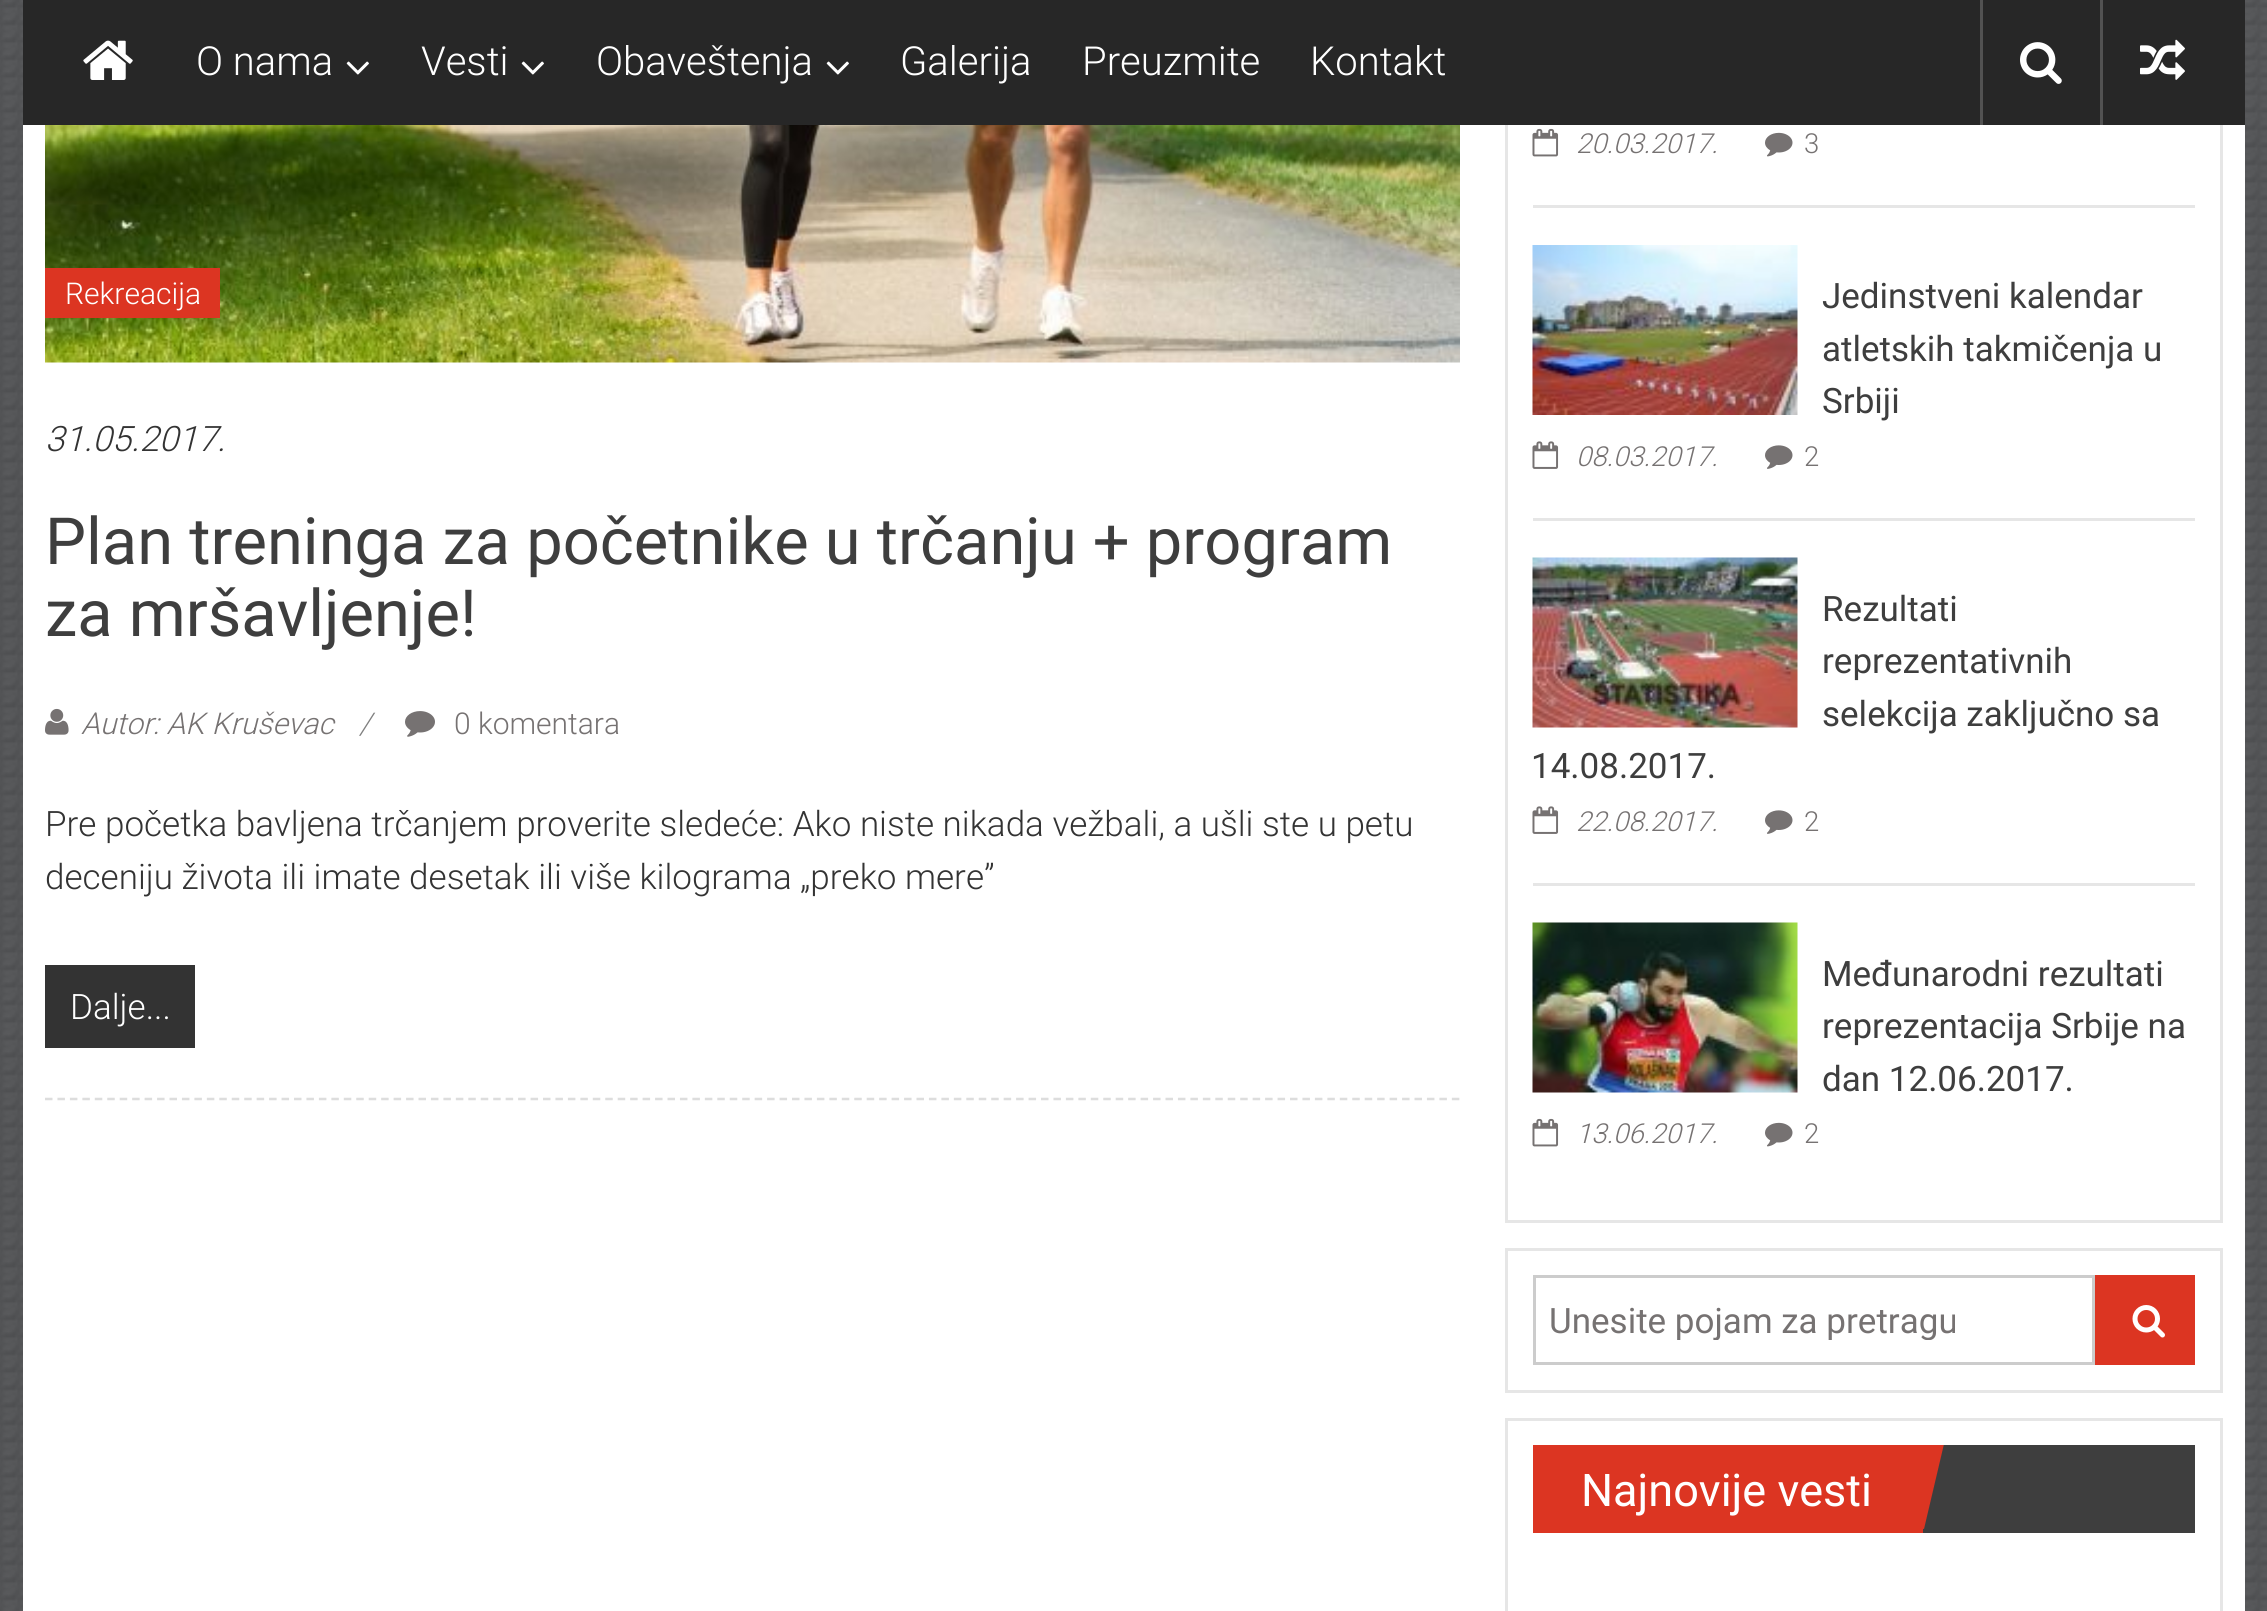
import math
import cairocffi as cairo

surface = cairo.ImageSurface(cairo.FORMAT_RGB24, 2267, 1611)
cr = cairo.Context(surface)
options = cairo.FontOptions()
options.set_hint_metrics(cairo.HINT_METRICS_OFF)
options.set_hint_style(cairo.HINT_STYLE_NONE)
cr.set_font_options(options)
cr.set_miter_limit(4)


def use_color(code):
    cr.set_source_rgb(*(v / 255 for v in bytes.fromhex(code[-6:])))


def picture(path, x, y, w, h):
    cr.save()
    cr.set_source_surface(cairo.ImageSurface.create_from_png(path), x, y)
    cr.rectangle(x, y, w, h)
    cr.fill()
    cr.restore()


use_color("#ffffff")
cr.paint()
picture("img1.png", 0, 0, 2267, 1611)
use_color("#ffffff")
cr.rectangle(23, 125, 2222, 1486)
cr.fill()
cr.rectangle(1506.5, -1.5, 715, 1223)
use_color("#e6e6e6")
cr.set_line_width(3)
cr.stroke()
use_color("#272727")
cr.rectangle(23, 0, 2222, 125)
cr.fill()
picture("img2.png", 83, 40, 50, 40)
cr.select_font_face("Roboto Light")
cr.set_font_size(40)
use_color("#ffffff")
cr.move_to(196, 75)
cr.show_text("O nama")
picture("img3.png", 346, 61, 23, 14)
cr.move_to(421, 75)
cr.show_text("Vesti")
picture("img3.png", 521, 61, 23, 14)
cr.move_to(596, 75)
cr.show_text("Obaveštenja")
picture("img3.png", 826, 61, 23, 14)
cr.move_to(900, 75)
cr.show_text("Galerija")
cr.move_to(1082, 75)
cr.show_text("Preuzmite")
cr.move_to(1310, 75)
cr.show_text("Kontakt")
use_color("#525252")
cr.rectangle(1980, 0, 3, 125)
cr.fill()
picture("img4.png", 2020, 42, 42, 42)
cr.rectangle(2100, 0, 3, 125)
cr.fill()
picture("img5.png", 2140, 39, 45, 41)
cr.new_path()
cr.move_to(45, 1099)
cr.line_to(1460, 1099)
use_color("#dddddd")
cr.set_line_width(2.5)
cr.set_dash([7.5, 4.95])
cr.stroke()
picture("img6.png", 45, 125, 1415, 238)
use_color("#dc3522")
cr.rectangle(45, 268, 175, 50)
cr.fill()
cr.set_font_size(30)
use_color("#ffffff")
cr.move_to(65, 304)
cr.show_text("Rekreacija")
cr.select_font_face("Roboto Light", cairo.FONT_SLANT_ITALIC)
cr.set_font_size(35)
use_color("#333333")
cr.move_to(45, 451)
cr.show_text("31.05.2017.")
cr.select_font_face("Roboto")
cr.set_font_size(65)
use_color("#3e3e3e")
cr.move_to(45, 564)
cr.show_text("Plan treninga za početnike u trčanju + program")
cr.move_to(45, 636)
cr.show_text("za mršavljenje!")
picture("img7.png", 45, 708, 24, 27)
cr.select_font_face("Roboto Light", cairo.FONT_SLANT_ITALIC)
cr.set_font_size(30)
use_color("#767272")
cr.move_to(81, 734)
cr.show_text("Autor: AK Kruševac")
use_color("#808080")
cr.move_to(359, 734)
cr.show_text("/")
picture("img8.png", 405, 711, 30, 26)
cr.select_font_face("Roboto Light")
use_color("#767272")
cr.move_to(454, 734)
cr.show_text("0 komentara")
cr.set_font_size(35)
use_color("#333333")
cr.move_to(45, 836)
cr.show_text("Pre početka bavljena trčanjem proverite sledeće: Ako niste nikada vežbali, a ušli ste u petu")
cr.move_to(45, 889)
cr.show_text("deceniju života ili imate desetak ili više kilograma „preko mere”")
cr.rectangle(45, 965, 150, 83)
cr.fill()
use_color("#ffffff")
cr.move_to(70, 1019)
cr.show_text("Dalje...")
use_color("#e6e6e6")
cr.rectangle(1533, 205, 662, 3)
cr.fill()
picture("img9.png", 1532, 128, 27, 29)
cr.select_font_face("Roboto Light", cairo.FONT_SLANT_ITALIC)
cr.set_font_size(27.5)
use_color("#767272")
cr.move_to(1576, 153)
cr.show_text("20.03.2017.")
picture("img10.png", 1765, 132, 28, 25)
cr.select_font_face("Roboto Light")
cr.move_to(1804, 153)
cr.show_text("3")
use_color("#e6e6e6")
cr.rectangle(1533, 518, 662, 3)
cr.fill()
picture("img11.png", 1532, 245, 266, 170)
cr.select_font_face("Roboto")
cr.set_font_size(35)
use_color("#3e3e3e")
cr.move_to(1822, 308)
cr.show_text("Jedinstveni kalendar")
cr.move_to(1822, 361)
cr.show_text("atletskih takmičenja u")
cr.move_to(1822, 413)
cr.show_text("Srbiji")
picture("img12.png", 1532, 441, 27, 28)
cr.select_font_face("Roboto Light", cairo.FONT_SLANT_ITALIC)
cr.set_font_size(27.5)
use_color("#767272")
cr.move_to(1576, 466)
cr.show_text("08.03.2017.")
picture("img13.png", 1765, 445, 28, 24)
cr.select_font_face("Roboto Light")
cr.move_to(1804, 466)
cr.show_text("2")
use_color("#e6e6e6")
cr.rectangle(1533, 883, 662, 3)
cr.fill()
picture("img14.png", 1532, 557, 266, 171)
cr.select_font_face("Roboto")
cr.set_font_size(35)
use_color("#3e3e3e")
cr.move_to(1822, 621)
cr.show_text("Rezultati")
cr.move_to(1822, 673)
cr.show_text("reprezentativnih")
cr.move_to(1822, 726)
cr.show_text("selekcija zaključno sa")
cr.move_to(1531, 778)
cr.show_text("14.08.2017.")
picture("img12.png", 1532, 806, 27, 28)
cr.select_font_face("Roboto Light", cairo.FONT_SLANT_ITALIC)
cr.set_font_size(27.5)
use_color("#767272")
cr.move_to(1576, 831)
cr.show_text("22.08.2017.")
picture("img13.png", 1765, 810, 28, 24)
cr.select_font_face("Roboto Light")
cr.move_to(1804, 831)
cr.show_text("2")
picture("img15.png", 1532, 922, 266, 171)
cr.select_font_face("Roboto")
cr.set_font_size(35)
use_color("#3e3e3e")
cr.move_to(1822, 986)
cr.show_text("Međunarodni rezultati")
cr.move_to(1822, 1038)
cr.show_text("reprezentacija Srbije na")
cr.move_to(1822, 1091)
cr.show_text("dan 12.06.2017.")
picture("img9.png", 1532, 1118, 27, 29)
cr.select_font_face("Roboto Light", cairo.FONT_SLANT_ITALIC)
cr.set_font_size(27.5)
use_color("#767272")
cr.move_to(1576, 1143)
cr.show_text("13.06.2017.")
picture("img10.png", 1765, 1122, 28, 25)
cr.select_font_face("Roboto Light")
cr.move_to(1804, 1143)
cr.show_text("2")
cr.rectangle(1506.5, 1249.5, 715, 142)
use_color("#e6e6e6")
cr.set_line_width(3)
cr.set_dash([])
cr.stroke()
cr.rectangle(1534.5, 1276.5, 559, 87)
use_color("#cccccc")
cr.stroke()
cr.save()
cr.rectangle(1550, 1300, 528, 40)
cr.clip()
cr.select_font_face("Roboto")
cr.set_font_size(35)
use_color("#767272")
cr.move_to(1549, 1333)
cr.show_text("Unesite pojam za pretragu")
cr.restore()
use_color("#dc3522")
cr.rectangle(2095, 1275, 100, 90)
cr.fill()
picture("img16.png", 2132, 1305, 33, 33)
cr.rectangle(1506.5, 1419.5, 715, 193)
use_color("#e6e6e6")
cr.stroke()
use_color("#3e3e3e")
cr.rectangle(1923, 1445, 272, 88)
cr.fill()
use_color("#dc3522")
cr.rectangle(1533, 1445, 390, 88)
cr.fill()
cr.save()
cr.rectangle(1533, 1445, 662, 88)
cr.clip()
cr.new_path()
cr.move_to(1944, 1444)
cr.line_to(1924, 1529)
cr.line_to(1839, 1510)
cr.line_to(1858, 1425)
cr.close_path()
cr.fill()
cr.restore()
cr.select_font_face("Roboto")
cr.set_font_size(45)
use_color("#ffffff")
cr.move_to(1581, 1506)
cr.show_text("Najnovije vesti")
surface.write_to_png("result.png")
